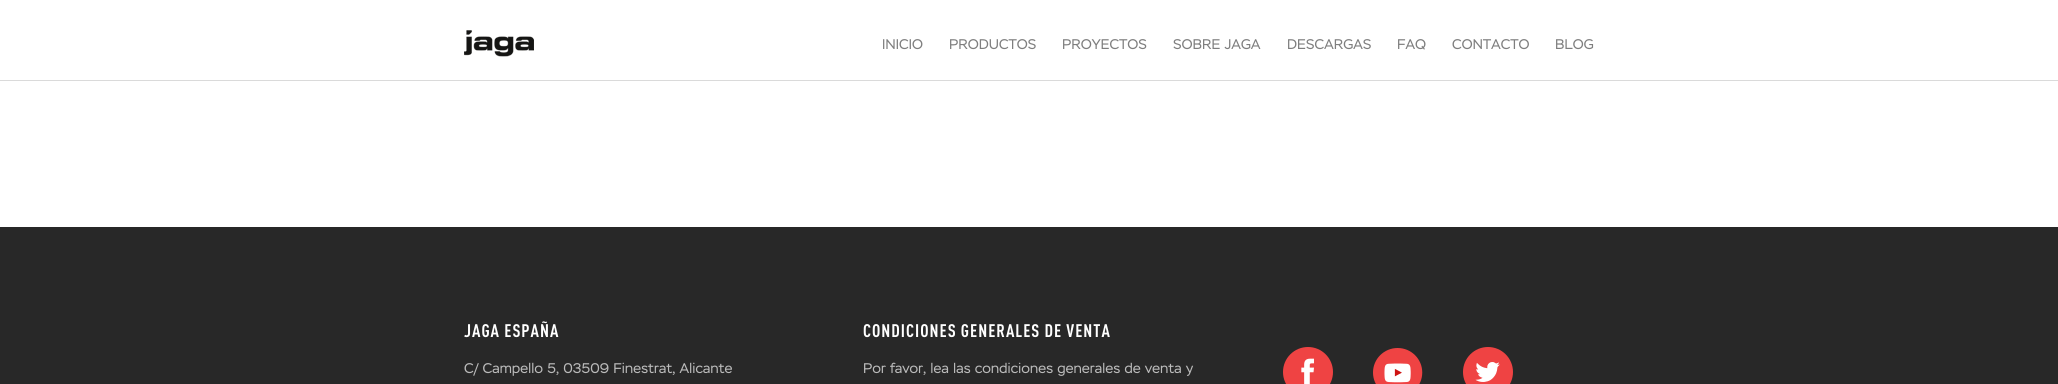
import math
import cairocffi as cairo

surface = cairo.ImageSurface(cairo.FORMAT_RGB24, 2058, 384)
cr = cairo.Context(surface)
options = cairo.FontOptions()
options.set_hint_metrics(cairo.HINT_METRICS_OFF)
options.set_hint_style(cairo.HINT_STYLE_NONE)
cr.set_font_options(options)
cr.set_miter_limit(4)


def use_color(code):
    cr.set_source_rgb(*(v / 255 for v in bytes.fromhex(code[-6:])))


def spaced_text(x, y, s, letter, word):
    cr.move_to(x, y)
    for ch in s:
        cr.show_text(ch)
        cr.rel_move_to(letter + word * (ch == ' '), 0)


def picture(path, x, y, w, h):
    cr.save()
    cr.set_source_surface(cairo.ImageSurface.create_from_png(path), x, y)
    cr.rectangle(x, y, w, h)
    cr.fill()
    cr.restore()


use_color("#ffffff")
cr.paint()
use_color("#dadada")
cr.rectangle(0, 80, 2058, 1)
cr.fill()
picture("img1.png", 464, 30, 70, 27)
picture("img2.png", 883, 39, 40, 11)
picture("img3.png", 950, 39, 86, 11)
picture("img4.png", 1063, 39, 84, 11)
picture("img5.png", 1173, 39, 88, 11)
picture("img6.png", 1288, 39, 83, 11)
picture("img7.png", 1398, 39, 28, 11)
picture("img8.png", 1452, 39, 77, 11)
picture("img9.png", 1556, 39, 38, 11)
use_color("#282828")
cr.rectangle(0, 227, 2058, 157)
cr.fill()
cr.select_font_face("DIN", cairo.FONT_SLANT_NORMAL, cairo.FONT_WEIGHT_BOLD)
cr.set_font_size(18)
use_color("#ffffff")
spaced_text(464, 337, "JAGA ESPAÑA", 1, 0)
picture("img10.png", 464, 362, 268, 14)
spaced_text(863, 337, "CONDICIONES GENERALES DE VENTA", 1, 0)
picture("img11.png", 864, 362, 330, 14)
picture("img12.png", 1283, 347, 50, 37)
picture("img13.png", 1373, 348, 50, 36)
picture("img14.png", 1463, 347, 50, 37)
surface.write_to_png("result.png")
